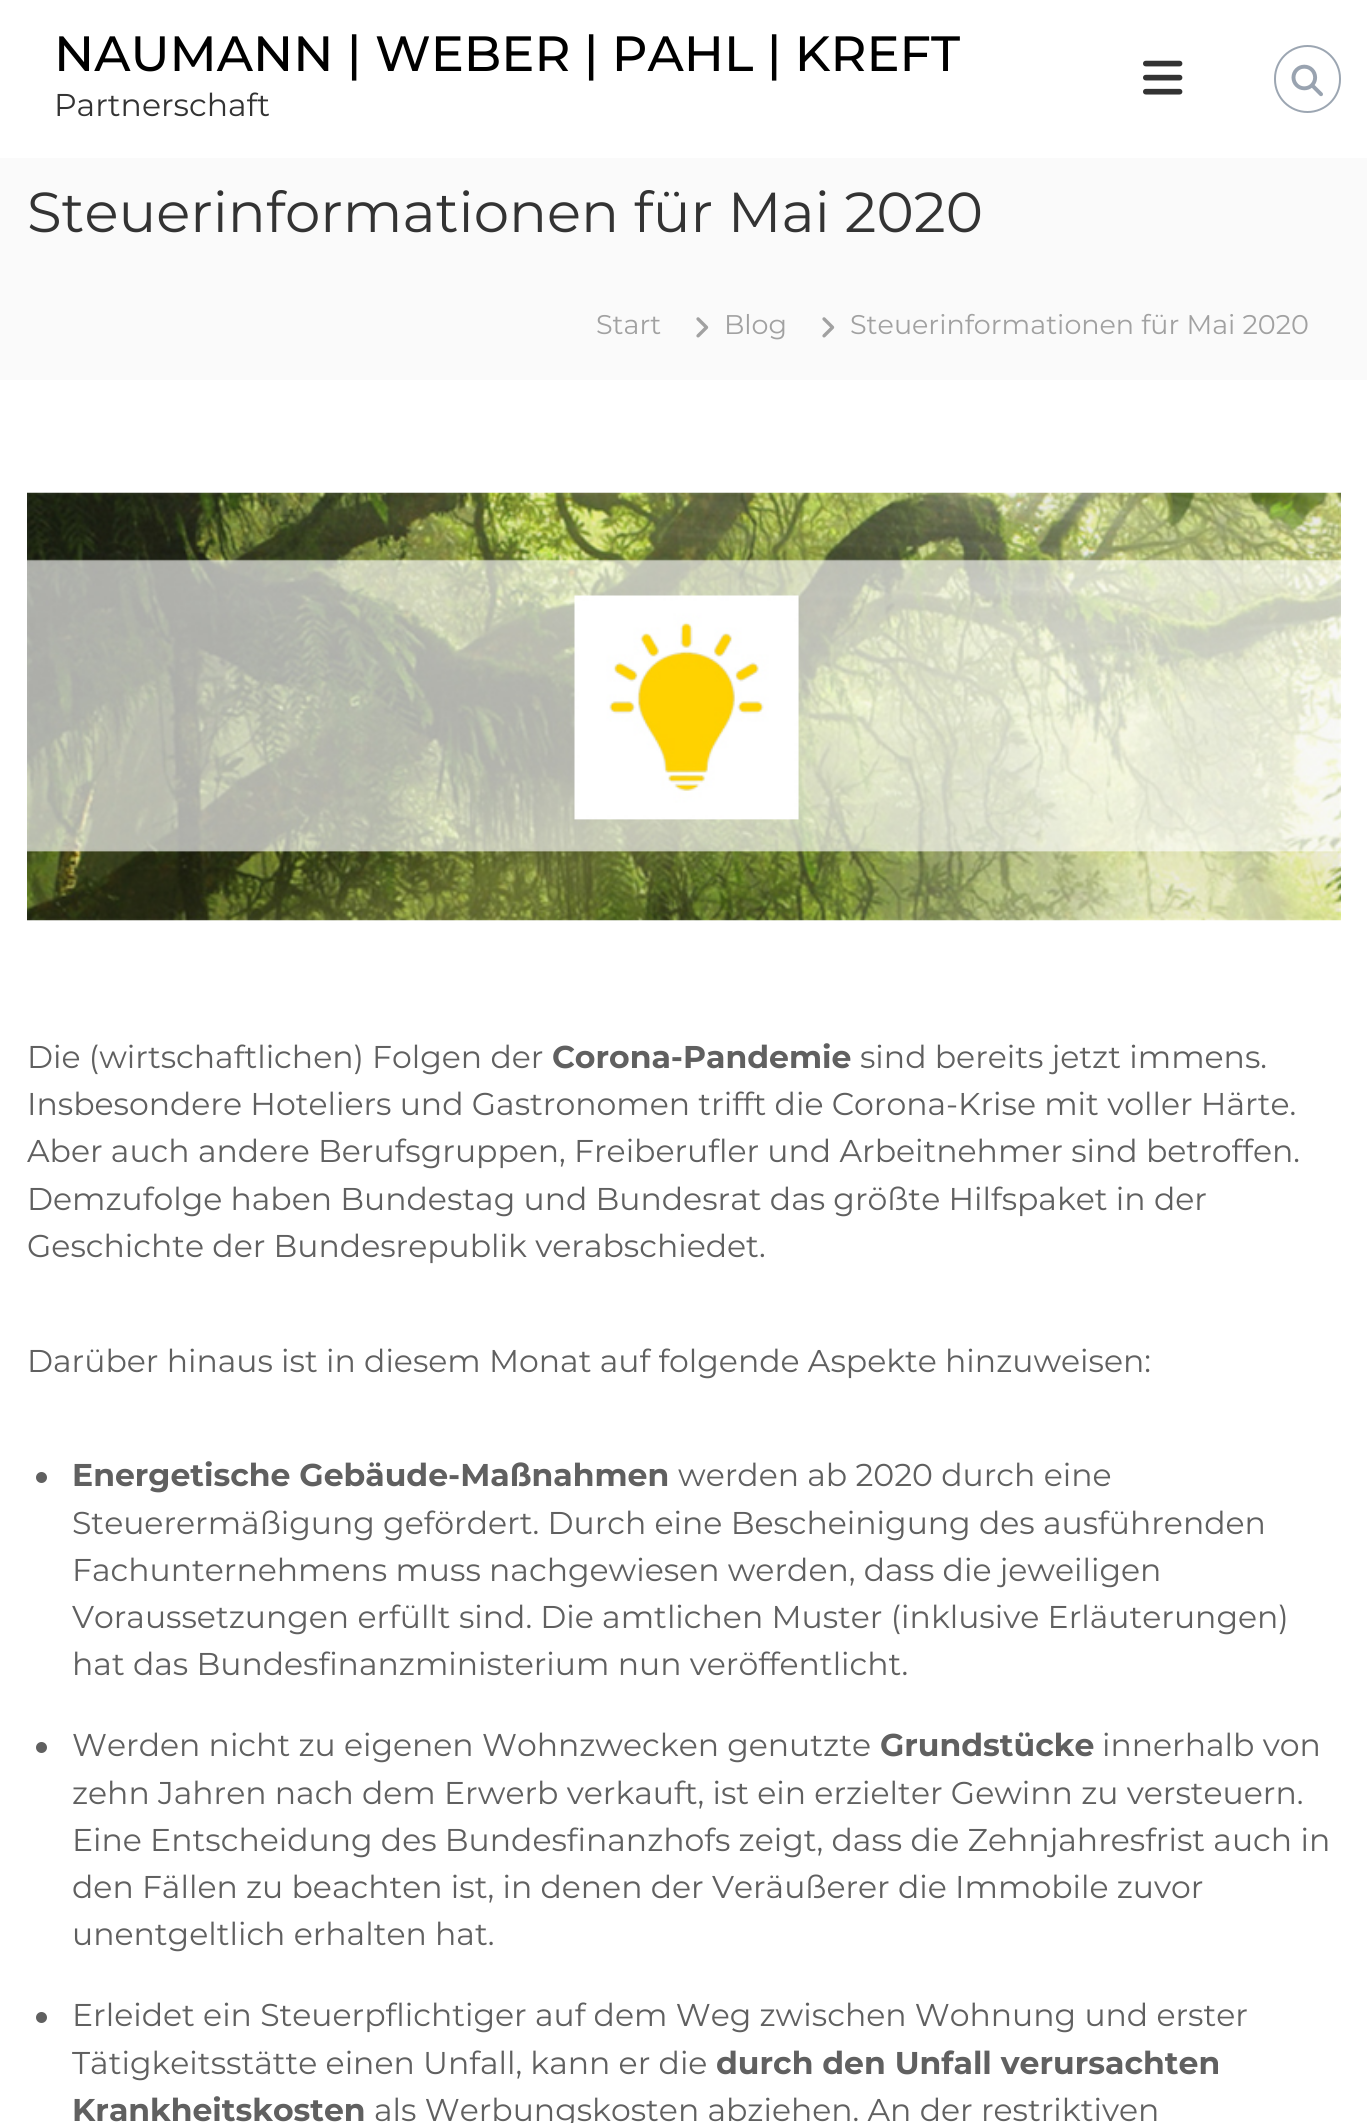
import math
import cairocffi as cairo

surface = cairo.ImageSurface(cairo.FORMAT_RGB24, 1367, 2123)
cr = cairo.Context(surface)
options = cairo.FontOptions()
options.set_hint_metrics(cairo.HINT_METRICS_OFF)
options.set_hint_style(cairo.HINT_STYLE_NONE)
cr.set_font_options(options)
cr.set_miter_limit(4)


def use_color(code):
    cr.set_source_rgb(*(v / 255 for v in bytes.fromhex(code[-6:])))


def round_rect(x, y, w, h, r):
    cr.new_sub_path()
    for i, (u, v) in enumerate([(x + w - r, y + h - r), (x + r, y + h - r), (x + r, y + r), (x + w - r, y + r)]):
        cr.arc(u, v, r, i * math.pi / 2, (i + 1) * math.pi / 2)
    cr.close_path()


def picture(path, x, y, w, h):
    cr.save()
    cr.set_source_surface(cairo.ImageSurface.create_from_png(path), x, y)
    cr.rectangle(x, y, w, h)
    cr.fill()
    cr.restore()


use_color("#ffffff")
cr.paint()
cr.select_font_face("Montserrat Medium")
cr.set_font_size(49.5)
use_color("#000000")
cr.move_to(54, 71)
cr.show_text("NAUMANN | WEBER | PAHL | KREFT")
cr.select_font_face("Montserrat")
cr.set_font_size(31.5)
use_color("#333333")
cr.move_to(54, 116)
cr.show_text("Partnerschaft")
picture("img1.png", 1143, 60, 40, 35)
round_rect(1275, 46, 65, 66, 32.5)
use_color("#9ca6b2")
cr.stroke()
picture("img2.png", 1291, 64, 32, 33)
use_color("#fafafa")
cr.rectangle(0, 158, 1367, 222)
cr.fill()
cr.set_font_size(56.25)
use_color("#333333")
cr.move_to(27, 232)
cr.show_text("Steuerinformationen für Mai 2020")
cr.set_font_size(27)
use_color("#a1a1a1")
cr.move_to(596, 334)
cr.show_text("Start")
picture("img3.png", 696, 317, 13, 21)
cr.move_to(724, 334)
cr.show_text("Blog")
picture("img3.png", 822, 317, 13, 21)
cr.move_to(850, 334)
cr.show_text("Steuerinformationen für Mai 2020")
picture("img4.png", 27, 492, 1314, 429)
cr.set_font_size(31.5)
use_color("#606060")
cr.move_to(27, 1068)
cr.show_text("Die (wirtschaftlichen) Folgen der")
cr.select_font_face("Montserrat", cairo.FONT_SLANT_NORMAL, cairo.FONT_WEIGHT_BOLD)
cr.move_to(552, 1068)
cr.show_text("Corona-Pandemie")
cr.select_font_face("Montserrat")
cr.move_to(860, 1068)
cr.show_text("sind bereits jetzt immens.")
cr.move_to(27, 1115)
cr.show_text("Insbesondere Hoteliers und Gastronomen trifft die Corona-Krise mit voller Härte.")
cr.move_to(27, 1162)
cr.show_text("Aber auch andere Berufsgruppen, Freiberufler und Arbeitnehmer sind betroffen.")
cr.move_to(27, 1210)
cr.show_text("Demzufolge haben Bundestag und Bundesrat das größte Hilfspaket in der")
cr.move_to(27, 1257)
cr.show_text("Geschichte der Bundesrepublik verabschiedet.")
cr.move_to(27, 1372)
cr.show_text("Darüber hinaus ist in diesem Monat auf folgende Aspekte hinzuweisen:")
cr.new_path()
cr.arc(41.5, 1477.5, 5.5, 0, 2 * math.pi)
cr.fill()
cr.select_font_face("Montserrat", cairo.FONT_SLANT_NORMAL, cairo.FONT_WEIGHT_BOLD)
cr.move_to(72, 1486)
cr.show_text("Energetische Gebäude-Maßnahmen")
cr.select_font_face("Montserrat")
cr.move_to(678, 1486)
cr.show_text("werden ab 2020 durch eine")
cr.move_to(72, 1534)
cr.show_text("Steuerermäßigung gefördert. Durch eine Bescheinigung des ausführenden")
cr.move_to(72, 1581)
cr.show_text("Fachunternehmens muss nachgewiesen werden, dass die jeweiligen")
cr.move_to(72, 1628)
cr.show_text("Voraussetzungen erfüllt sind. Die amtlichen Muster (inklusive Erläuterungen)")
cr.move_to(72, 1675)
cr.show_text("hat das Bundesfinanzministerium nun veröffentlicht.")
cr.new_path()
cr.arc(41.5, 1747.5, 5.5, 0, 2 * math.pi)
cr.fill()
cr.move_to(72, 1756)
cr.show_text("Werden nicht zu eigenen Wohnzwecken genutzte")
cr.select_font_face("Montserrat", cairo.FONT_SLANT_NORMAL, cairo.FONT_WEIGHT_BOLD)
cr.move_to(880, 1756)
cr.show_text("Grundstücke")
cr.select_font_face("Montserrat")
cr.move_to(1102, 1756)
cr.show_text("innerhalb von")
cr.move_to(72, 1804)
cr.show_text("zehn Jahren nach dem Erwerb verkauft, ist ein erzielter Gewinn zu versteuern.")
cr.move_to(72, 1851)
cr.show_text("Eine Entscheidung des Bundesfinanzhofs zeigt, dass die Zehnjahresfrist auch in")
cr.move_to(72, 1898)
cr.show_text("den Fällen zu beachten ist, in denen der Veräußerer die Immobile zuvor")
cr.move_to(72, 1945)
cr.show_text("unentgeltlich erhalten hat.")
cr.new_path()
cr.arc(41.5, 2017.5, 5.5, 0, 2 * math.pi)
cr.fill()
cr.move_to(72, 2026)
cr.show_text("Erleidet ein Steuerpflichtiger auf dem Weg zwischen Wohnung und erster")
cr.move_to(72, 2074)
cr.show_text("Tätigkeitsstätte einen Unfall, kann er die")
cr.select_font_face("Montserrat", cairo.FONT_SLANT_NORMAL, cairo.FONT_WEIGHT_BOLD)
cr.move_to(716, 2074)
cr.show_text("durch den Unfall verursachten")
cr.move_to(72, 2121)
cr.show_text("Krankheitskosten")
cr.select_font_face("Montserrat")
cr.move_to(374, 2121)
cr.show_text("als Werbungskosten abziehen. An der restriktiven")
surface.write_to_png("result.png")
